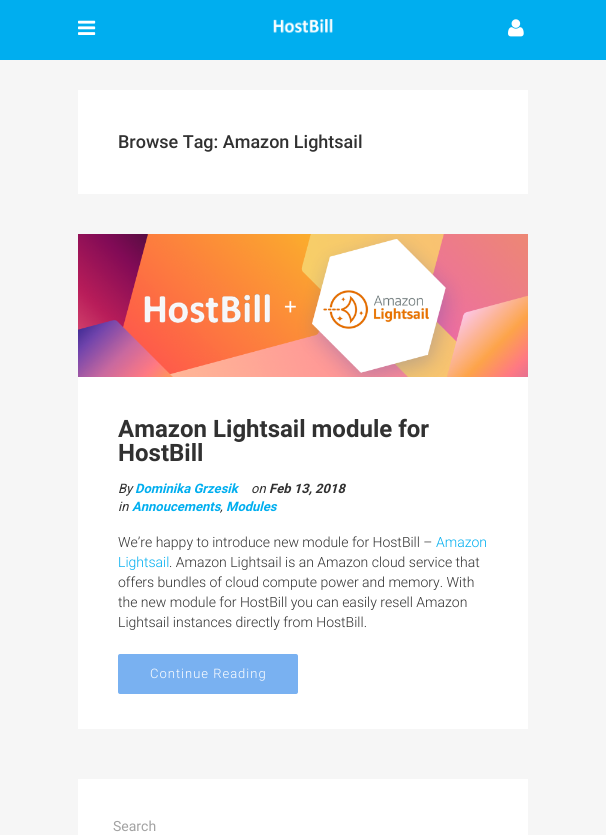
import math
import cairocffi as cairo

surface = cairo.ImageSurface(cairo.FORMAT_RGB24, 606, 835)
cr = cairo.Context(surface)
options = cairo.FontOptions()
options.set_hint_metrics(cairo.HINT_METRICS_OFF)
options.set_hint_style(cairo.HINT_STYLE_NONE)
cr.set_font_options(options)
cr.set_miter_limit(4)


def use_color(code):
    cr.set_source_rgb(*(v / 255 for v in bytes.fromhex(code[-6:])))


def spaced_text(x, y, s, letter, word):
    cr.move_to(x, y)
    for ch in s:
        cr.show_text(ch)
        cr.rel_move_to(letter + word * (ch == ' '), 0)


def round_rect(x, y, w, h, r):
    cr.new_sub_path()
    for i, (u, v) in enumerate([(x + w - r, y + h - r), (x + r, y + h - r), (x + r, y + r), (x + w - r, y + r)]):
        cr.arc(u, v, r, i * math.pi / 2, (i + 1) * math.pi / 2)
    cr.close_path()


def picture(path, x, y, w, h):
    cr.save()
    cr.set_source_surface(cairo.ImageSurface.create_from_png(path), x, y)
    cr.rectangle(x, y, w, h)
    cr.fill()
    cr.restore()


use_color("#f6f6f6")
cr.paint()
use_color("#00aeef")
cr.rectangle(0, 0, 606, 60)
cr.fill()
picture("img1.png", 78, 20, 18, 15)
picture("img2.png", 273, 19, 60, 14)
picture("img3.png", 508, 19, 16, 18)
use_color("#ffffff")
cr.rectangle(78, 90, 450, 104)
cr.fill()
cr.select_font_face("Roboto Medium")
cr.set_font_size(18)
use_color("#313131")
cr.move_to(118, 148)
cr.show_text("Browse Tag: Amazon Lightsail")
picture("img4.png", 78, 234, 450, 143)
use_color("#ffffff")
cr.rectangle(78, 377, 450, 352)
cr.fill()
cr.select_font_face("Roboto", cairo.FONT_SLANT_NORMAL, cairo.FONT_WEIGHT_BOLD)
cr.set_font_size(24)
use_color("#313131")
cr.move_to(118, 437)
cr.show_text("Amazon Lightsail module for")
cr.move_to(118, 461)
cr.show_text("HostBill")
cr.select_font_face("Roboto", cairo.FONT_SLANT_ITALIC)
cr.set_font_size(13)
cr.move_to(118, 493)
cr.show_text("By")
cr.select_font_face("Roboto", cairo.FONT_SLANT_ITALIC, cairo.FONT_WEIGHT_BOLD)
use_color("#00aeef")
cr.move_to(135, 493)
cr.show_text("Dominika Grzesik")
cr.select_font_face("Roboto", cairo.FONT_SLANT_ITALIC)
use_color("#313131")
cr.move_to(251, 493)
cr.show_text("on")
cr.select_font_face("Roboto", cairo.FONT_SLANT_ITALIC, cairo.FONT_WEIGHT_BOLD)
cr.move_to(269, 493)
cr.show_text("Feb 13, 2018")
cr.select_font_face("Roboto", cairo.FONT_SLANT_ITALIC)
cr.move_to(118, 511)
cr.show_text("in")
cr.select_font_face("Roboto", cairo.FONT_SLANT_ITALIC, cairo.FONT_WEIGHT_BOLD)
use_color("#00aeef")
cr.move_to(132, 511)
cr.show_text("Annoucements")
cr.move_to(226, 511)
cr.show_text("Modules")
cr.select_font_face("Roboto", cairo.FONT_SLANT_ITALIC)
use_color("#313131")
cr.move_to(220, 511)
cr.show_text(",")
cr.select_font_face("Roboto Light")
cr.set_font_size(14)
cr.move_to(118, 547)
cr.show_text("We’re happy to introduce new module for HostBill –")
use_color("#00aeef")
cr.move_to(436, 547)
cr.show_text("Amazon")
cr.move_to(118, 567)
cr.show_text("Lightsail")
use_color("#313131")
cr.move_to(169, 567)
cr.show_text(". Amazon Lightsail is an Amazon cloud service that")
cr.move_to(118, 587)
cr.show_text("offers bundles of cloud compute power and memory. With")
cr.move_to(118, 607)
cr.show_text("the new module for HostBill you can easily resell Amazon")
cr.move_to(118, 627)
cr.show_text("Lightsail instances directly from HostBill.")
use_color("#79b1f1")
round_rect(118, 654, 180, 40, 2)
cr.fill()
cr.set_font_size(13)
use_color("#ffffff")
spaced_text(150, 678, "Continue Reading", 1, 0)
cr.rectangle(78, 779, 450, 56)
cr.fill()
cr.select_font_face("Roboto")
cr.set_font_size(14)
use_color("#a2a2a2")
cr.move_to(113, 831)
cr.show_text("Search")
surface.write_to_png("result.png")
